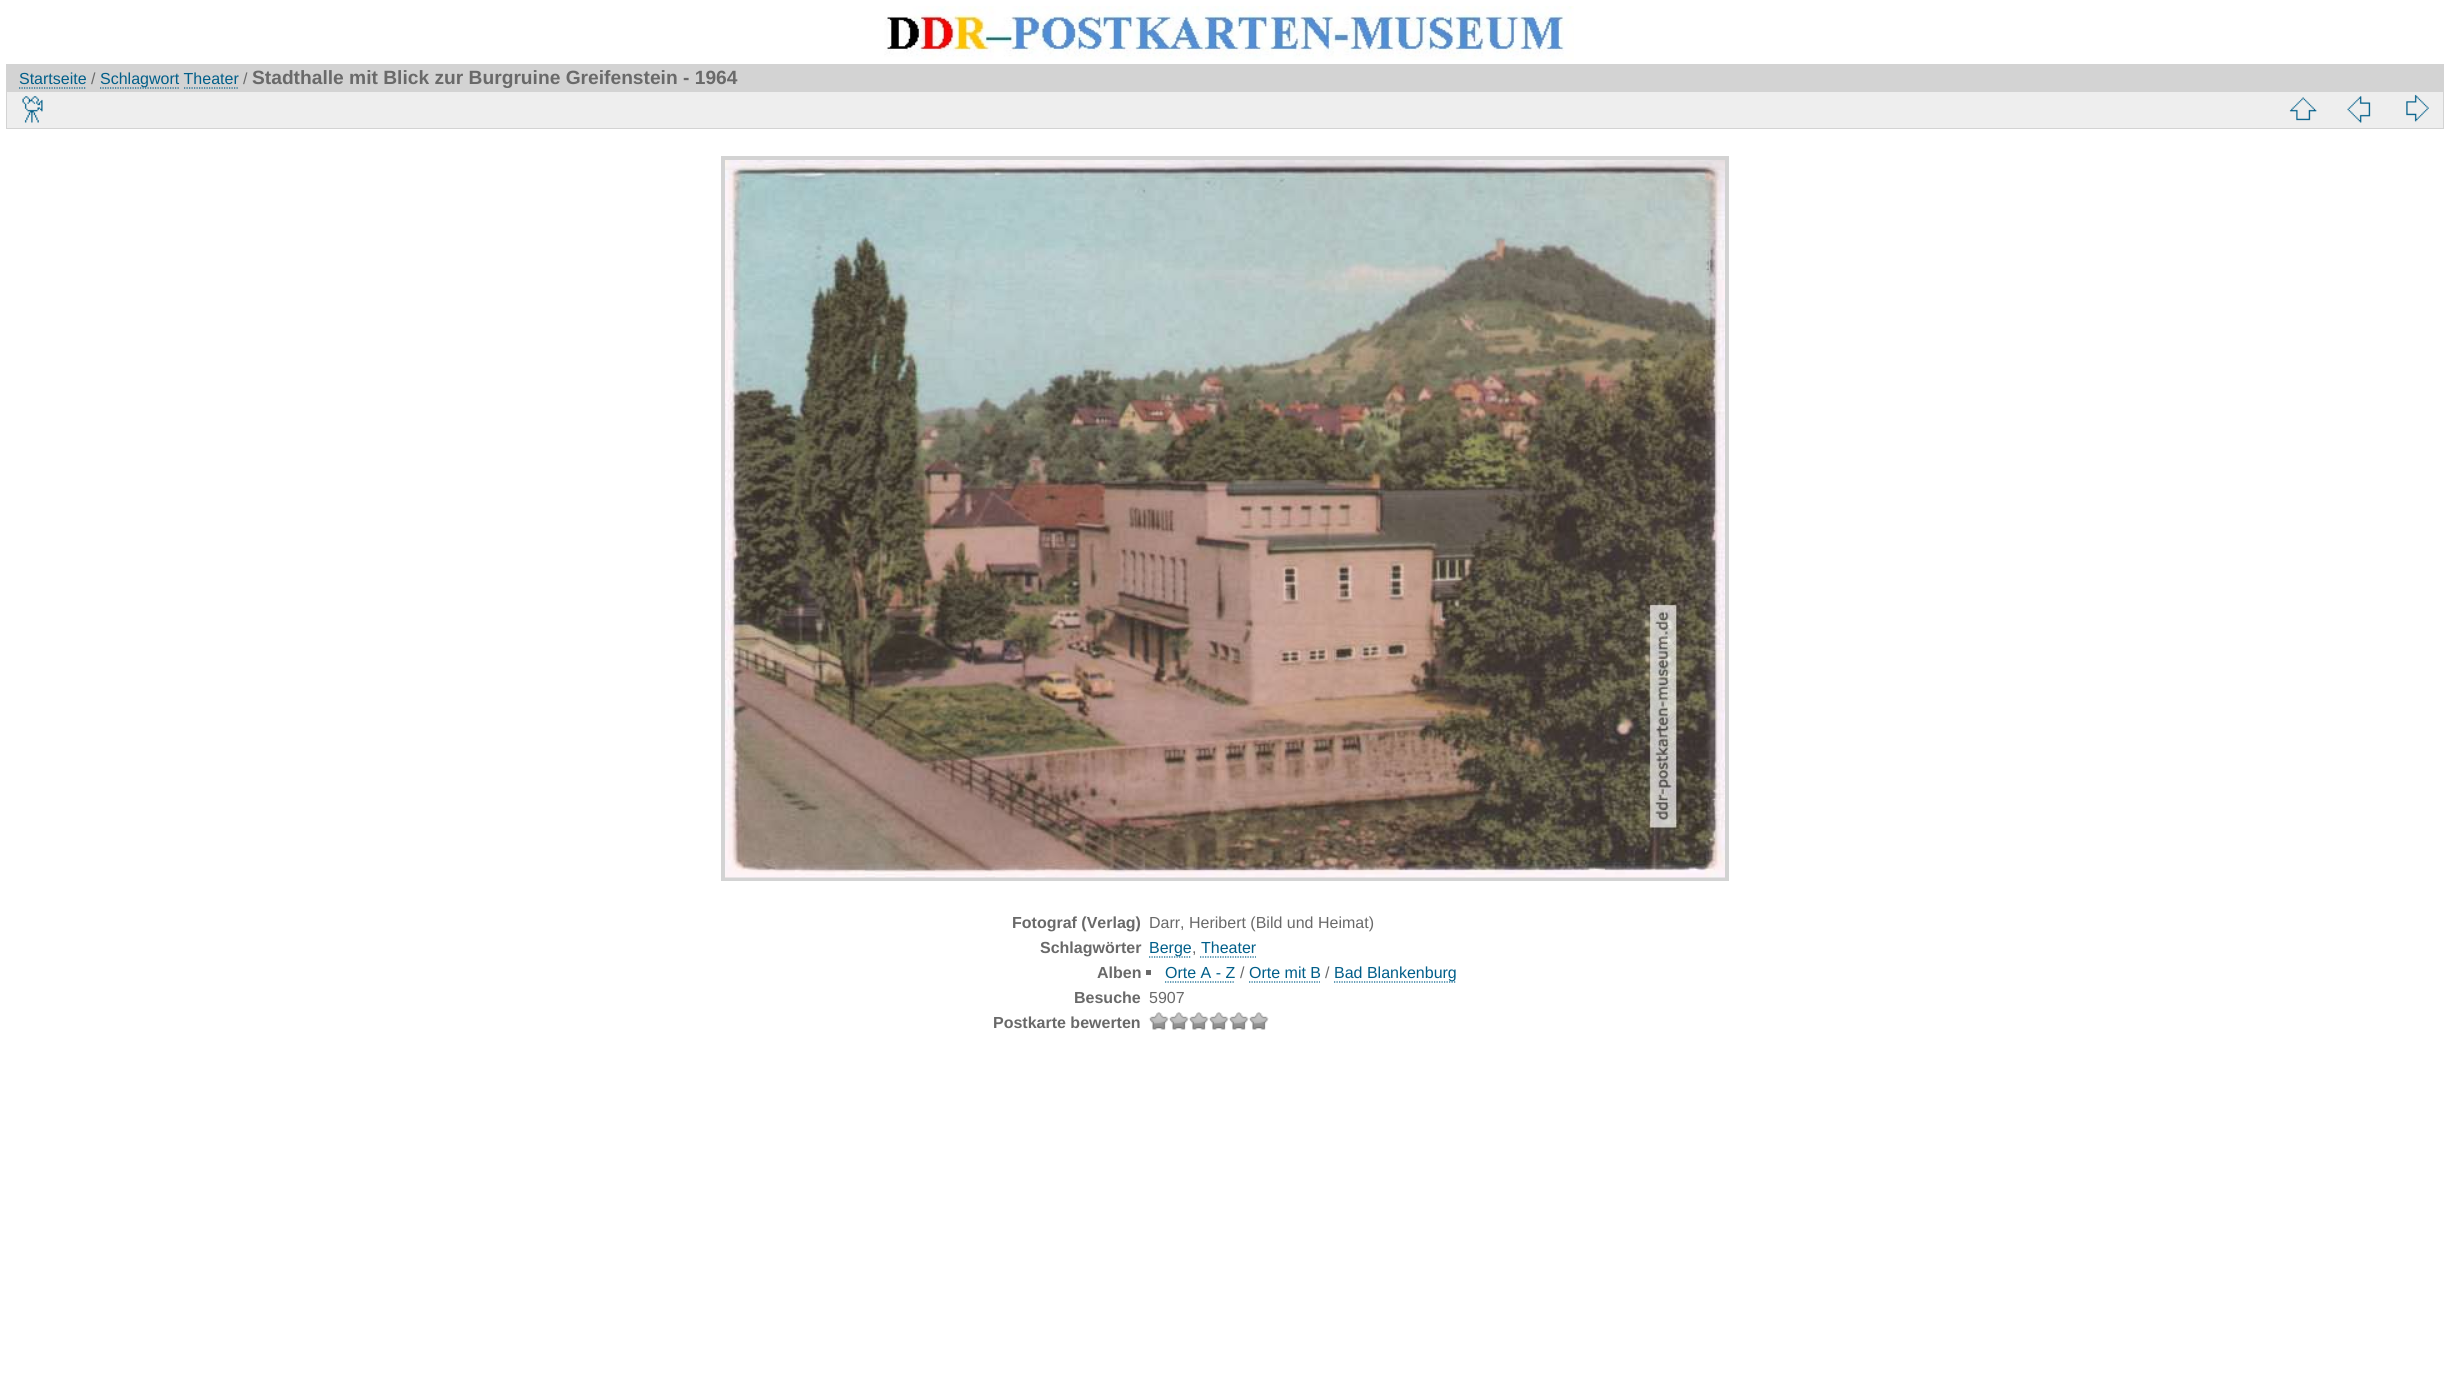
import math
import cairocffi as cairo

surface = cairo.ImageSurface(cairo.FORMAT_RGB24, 2449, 1376)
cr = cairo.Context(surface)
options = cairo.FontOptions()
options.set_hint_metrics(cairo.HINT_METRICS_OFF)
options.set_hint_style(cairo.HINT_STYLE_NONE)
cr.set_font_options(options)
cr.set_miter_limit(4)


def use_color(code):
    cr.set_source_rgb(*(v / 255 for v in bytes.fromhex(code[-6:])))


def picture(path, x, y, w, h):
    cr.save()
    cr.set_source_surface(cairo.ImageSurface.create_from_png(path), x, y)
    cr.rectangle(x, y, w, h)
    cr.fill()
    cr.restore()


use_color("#ffffff")
cr.paint()
picture("img1.png", 884, 6, 690, 54)
use_color("#d3d3d3")
cr.rectangle(6, 64, 2438, 27)
cr.fill()
cr.select_font_face("Liberation Sans")
cr.set_font_size(16)
use_color("#005e89")
cr.move_to(19, 84)
cr.show_text("Startseite")
cr.new_path()
cr.move_to(19, 88)
cr.line_to(86, 88)
cr.set_line_width(1.2)
cr.set_dash([1.25, 1.25])
cr.stroke()
use_color("#696969")
cr.move_to(91, 84)
cr.show_text("/")
cr.new_path()
cr.move_to(100, 88)
cr.line_to(179, 88)
use_color("#005e89")
cr.stroke()
cr.move_to(100, 84)
cr.show_text("Schlagwort Theater")
use_color("#696969")
cr.move_to(243, 84)
cr.show_text("/")
cr.select_font_face("Liberation Sans", cairo.FONT_SLANT_NORMAL, cairo.FONT_WEIGHT_BOLD)
cr.set_font_size(19.2)
cr.move_to(252, 84)
cr.show_text("Stadthalle mit Blick zur Burgruine Greifenstein - 1964")
cr.new_path()
cr.move_to(184, 88)
cr.line_to(239, 88)
use_color("#005e89")
cr.stroke()
use_color("#eeeeee")
cr.rectangle(6.5, 91.5, 2437, 37)
cr.fill_preserve()
use_color("#d3d3d3")
cr.set_line_width(1)
cr.set_dash([])
cr.stroke()
picture("img2.png", 22, 96, 21, 27)
picture("img3.png", 2289, 97, 28, 24)
picture("img4.png", 2347, 96, 24, 27)
picture("img5.png", 2406, 94, 23, 28)
cr.rectangle(723, 158, 1004, 721)
cr.set_line_width(4)
cr.stroke()
picture("img6.png", 725, 160, 1000, 718)
cr.set_font_size(16)
use_color("#696969")
cr.move_to(1012, 928)
cr.show_text("Fotograf (Verlag)")
cr.select_font_face("Liberation Sans")
cr.move_to(1149, 928)
cr.show_text("Darr, Heribert (Bild und Heimat)")
cr.select_font_face("Liberation Sans", cairo.FONT_SLANT_NORMAL, cairo.FONT_WEIGHT_BOLD)
cr.move_to(1040, 953)
cr.show_text("Schlagwörter")
cr.new_path()
cr.move_to(1149, 957)
cr.line_to(1191, 957)
use_color("#005e89")
cr.set_line_width(1.2)
cr.set_dash([1.25, 1.25])
cr.stroke()
cr.select_font_face("Liberation Sans")
cr.move_to(1149, 953)
cr.show_text("Berge")
use_color("#696969")
cr.move_to(1192, 953)
cr.show_text(",")
use_color("#005e89")
cr.move_to(1201, 953)
cr.show_text("Theater")
cr.new_path()
cr.move_to(1200, 957)
cr.line_to(1256, 957)
cr.stroke()
cr.select_font_face("Liberation Sans", cairo.FONT_SLANT_NORMAL, cairo.FONT_WEIGHT_BOLD)
use_color("#696969")
cr.move_to(1097, 978)
cr.show_text("Alben")
cr.rectangle(1146, 970, 5, 5)
cr.fill()
cr.select_font_face("Liberation Sans")
use_color("#005e89")
cr.move_to(1165, 978)
cr.show_text("Orte A - Z")
cr.new_path()
cr.move_to(1165, 982)
cr.line_to(1235, 982)
cr.stroke()
use_color("#696969")
cr.move_to(1240, 978)
cr.show_text("/")
use_color("#005e89")
cr.move_to(1249, 978)
cr.show_text("Orte mit B")
cr.new_path()
cr.move_to(1249, 982)
cr.line_to(1320, 982)
cr.stroke()
use_color("#696969")
cr.move_to(1325, 978)
cr.show_text("/")
cr.new_path()
cr.move_to(1334, 982)
cr.line_to(1456, 982)
use_color("#005e89")
cr.stroke()
cr.move_to(1334, 978)
cr.show_text("Bad Blankenburg")
cr.select_font_face("Liberation Sans", cairo.FONT_SLANT_NORMAL, cairo.FONT_WEIGHT_BOLD)
use_color("#696969")
cr.move_to(1074, 1003)
cr.show_text("Besuche")
cr.select_font_face("Liberation Sans")
cr.move_to(1149, 1003)
cr.show_text("5907")
cr.select_font_face("Liberation Sans", cairo.FONT_SLANT_NORMAL, cairo.FONT_WEIGHT_BOLD)
cr.move_to(993, 1028)
cr.show_text("Postkarte bewerten")
picture("img7.png", 1148, 1012, 21, 18)
picture("img8.png", 1169, 1012, 20, 18)
picture("img9.png", 1189, 1012, 20, 18)
picture("img9.png", 1209, 1012, 20, 18)
picture("img9.png", 1229, 1012, 20, 18)
picture("img9.png", 1249, 1012, 20, 18)
surface.write_to_png("result.png")
